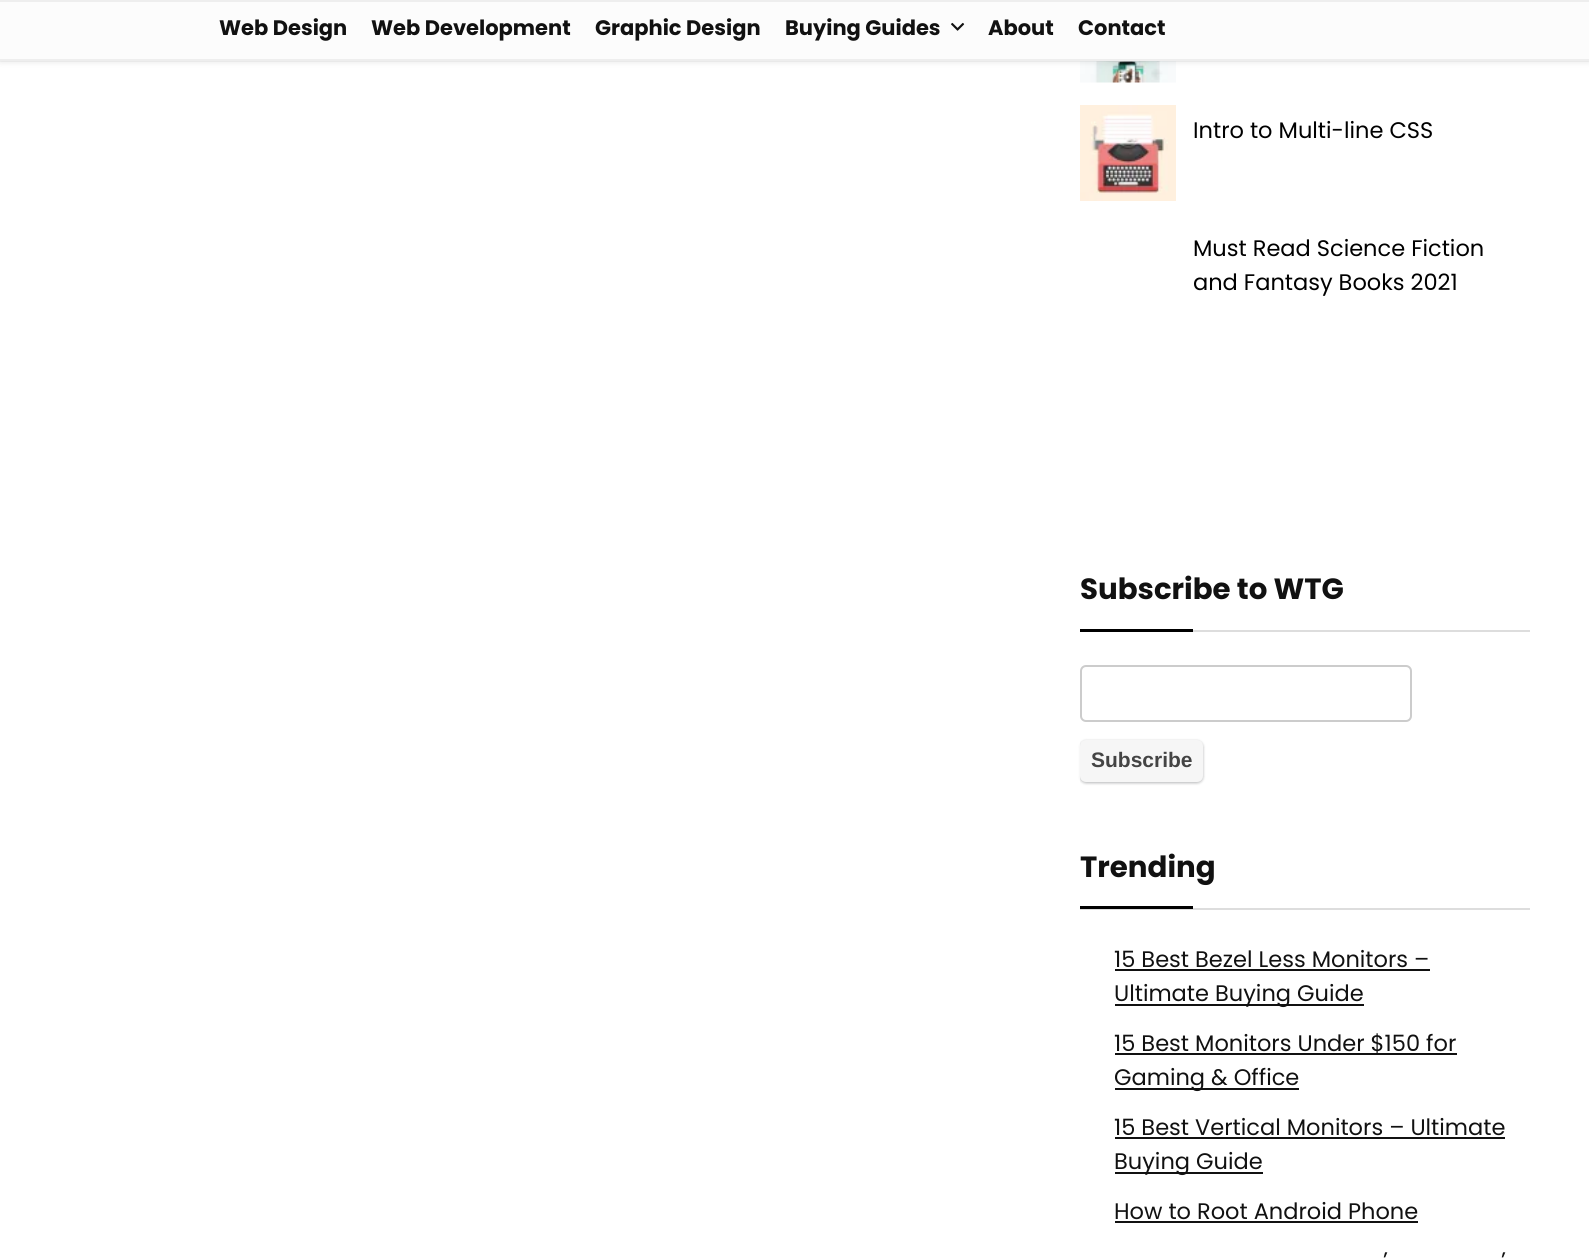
import math
import cairocffi as cairo

surface = cairo.ImageSurface(cairo.FORMAT_RGB24, 1589, 1258)
cr = cairo.Context(surface)
options = cairo.FontOptions()
options.set_hint_metrics(cairo.HINT_METRICS_OFF)
options.set_hint_style(cairo.HINT_STYLE_NONE)
cr.set_font_options(options)
cr.set_miter_limit(4)


def use_color(code):
    cr.set_source_rgb(*(v / 255 for v in bytes.fromhex(code[-6:])))


def round_rect(x, y, w, h, r):
    cr.new_sub_path()
    for i, (u, v) in enumerate([(x + w - r, y + h - r), (x + r, y + h - r), (x + r, y + r), (x + w - r, y + r)]):
        cr.arc(u, v, r, i * math.pi / 2, (i + 1) * math.pi / 2)
    cr.close_path()


def shadow(x, y, w, h, r, blur, alpha):
    cr.push_group_with_content(cairo.CONTENT_ALPHA)
    cr.set_operator(cairo.OPERATOR_SOURCE)
    for i in range(15, -16, -2):
        e = blur * i / 6
        if min(w, h) + 2 * e > 0:
            cr.set_source_rgba(0, 0, 0, alpha * math.erfc((i - 1) / 8.5) / 2)
            round_rect(x - e, y - e, w + 2 * e, h + 2 * e, max(0, min(r + e + blur * .6, min(w, h) / 2 + e)))
            cr.fill()
    cr.mask(cr.pop_group())


def picture(path, x, y, w, h):
    cr.save()
    cr.set_source_surface(cairo.ImageSurface.create_from_png(path), x, y)
    cr.rectangle(x, y, w, h)
    cr.fill()
    cr.restore()


use_color("#ffffff")
cr.paint()
picture("img2.png", 1080, 61, 96, 22)
cr.rectangle(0, 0, 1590, 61)
cr.set_source_rgba(0, 0, 0, 0.03)
cr.stroke()
use_color("#000000")
shadow(0, 2, 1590, 60, 0, 3, 0.1)
use_color("#fcfcfc")
cr.rectangle(0, 2, 1589, 57)
cr.fill()
use_color("#eeeeee")
cr.rectangle(0, 0, 1589, 2)
cr.fill()
cr.rectangle(0, 59, 1589, 2)
cr.fill()
cr.select_font_face("Poppins", cairo.FONT_SLANT_NORMAL, cairo.FONT_WEIGHT_BOLD)
cr.set_font_size(21)
use_color("#111111")
cr.move_to(219, 35)
cr.show_text("Web Design")
cr.move_to(371, 35)
cr.show_text("Web Development")
cr.move_to(595, 35)
cr.show_text("Graphic Design")
cr.move_to(785, 35)
cr.show_text("Buying Guides")
picture("img1.png", 951, 22, 14, 9)
cr.move_to(988, 35)
cr.show_text("About")
cr.move_to(1078, 35)
cr.show_text("Contact")
picture("img3.png", 1080, 105, 96, 96)
cr.select_font_face("Poppins")
cr.set_font_size(22.5)
use_color("#000000")
cr.move_to(1193, 138)
cr.show_text("Intro to Multi-line CSS")
cr.move_to(1193, 256)
cr.show_text("Must Read Science Fiction")
cr.move_to(1193, 290)
cr.show_text("and Fantasy Books 2021")
use_color("#dddddd")
cr.rectangle(1193, 630, 337, 2)
cr.fill()
cr.select_font_face("Poppins", cairo.FONT_SLANT_NORMAL, cairo.FONT_WEIGHT_BOLD)
cr.set_font_size(29.25)
use_color("#111111")
cr.move_to(1080, 599)
cr.show_text("Subscribe to WTG")
use_color("#000000")
cr.rectangle(1080, 629, 113, 3)
cr.fill()
round_rect(1081, 666, 330, 55, 5)
use_color("#cccccc")
cr.stroke()
use_color("#000000")
shadow(1080, 741, 123, 42, 6, 1.5, 0.08)
cr.save()
cr.rectangle(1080, 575, 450, 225)
cr.clip()
use_color("#3c4043")
shadow(1080, 741, 123, 42, 6, 1.5, 0.3)
cr.restore()
use_color("#f6f6f6")
round_rect(1080, 740, 123, 42, 6)
cr.fill()
cr.select_font_face("Liberation Sans", cairo.FONT_SLANT_NORMAL, cairo.FONT_WEIGHT_BOLD)
cr.set_font_size(21)
use_color("#444444")
cr.move_to(1091, 767)
cr.show_text("Subscribe")
use_color("#dddddd")
cr.rectangle(1080, 908, 450, 2)
cr.fill()
cr.select_font_face("Poppins", cairo.FONT_SLANT_NORMAL, cairo.FONT_WEIGHT_BOLD)
cr.set_font_size(29.25)
use_color("#111111")
cr.move_to(1080, 877)
cr.show_text("Trending")
use_color("#000000")
cr.rectangle(1080, 906, 113, 3)
cr.fill()
cr.select_font_face("Poppins")
cr.set_font_size(22.5)
use_color("#111111")
cr.move_to(1114, 967)
cr.show_text("15 Best Bezel Less Monitors –")
cr.rectangle(1115, 969, 315, 2)
cr.fill()
cr.rectangle(1115, 1004, 249, 2)
cr.fill()
cr.move_to(1114, 1001)
cr.show_text("Ultimate Buying Guide")
cr.move_to(1114, 1051)
cr.show_text("15 Best Monitors Under $150 for")
cr.rectangle(1115, 1053, 342, 2)
cr.fill()
cr.rectangle(1115, 1088, 184, 2)
cr.fill()
cr.move_to(1114, 1085)
cr.show_text("Gaming & Office")
cr.move_to(1114, 1135)
cr.show_text("15 Best Vertical Monitors – Ultimate")
cr.rectangle(1115, 1137, 390, 2)
cr.fill()
cr.rectangle(1115, 1172, 148, 2)
cr.fill()
cr.move_to(1114, 1169)
cr.show_text("Buying Guide")
cr.move_to(1114, 1219)
cr.show_text("How to Root Android Phone")
cr.rectangle(1115, 1221, 303, 2)
cr.fill()
cr.move_to(1383, 1268)
cr.show_text("’")
cr.move_to(1501, 1268)
cr.show_text("’")
surface.write_to_png("result.png")
